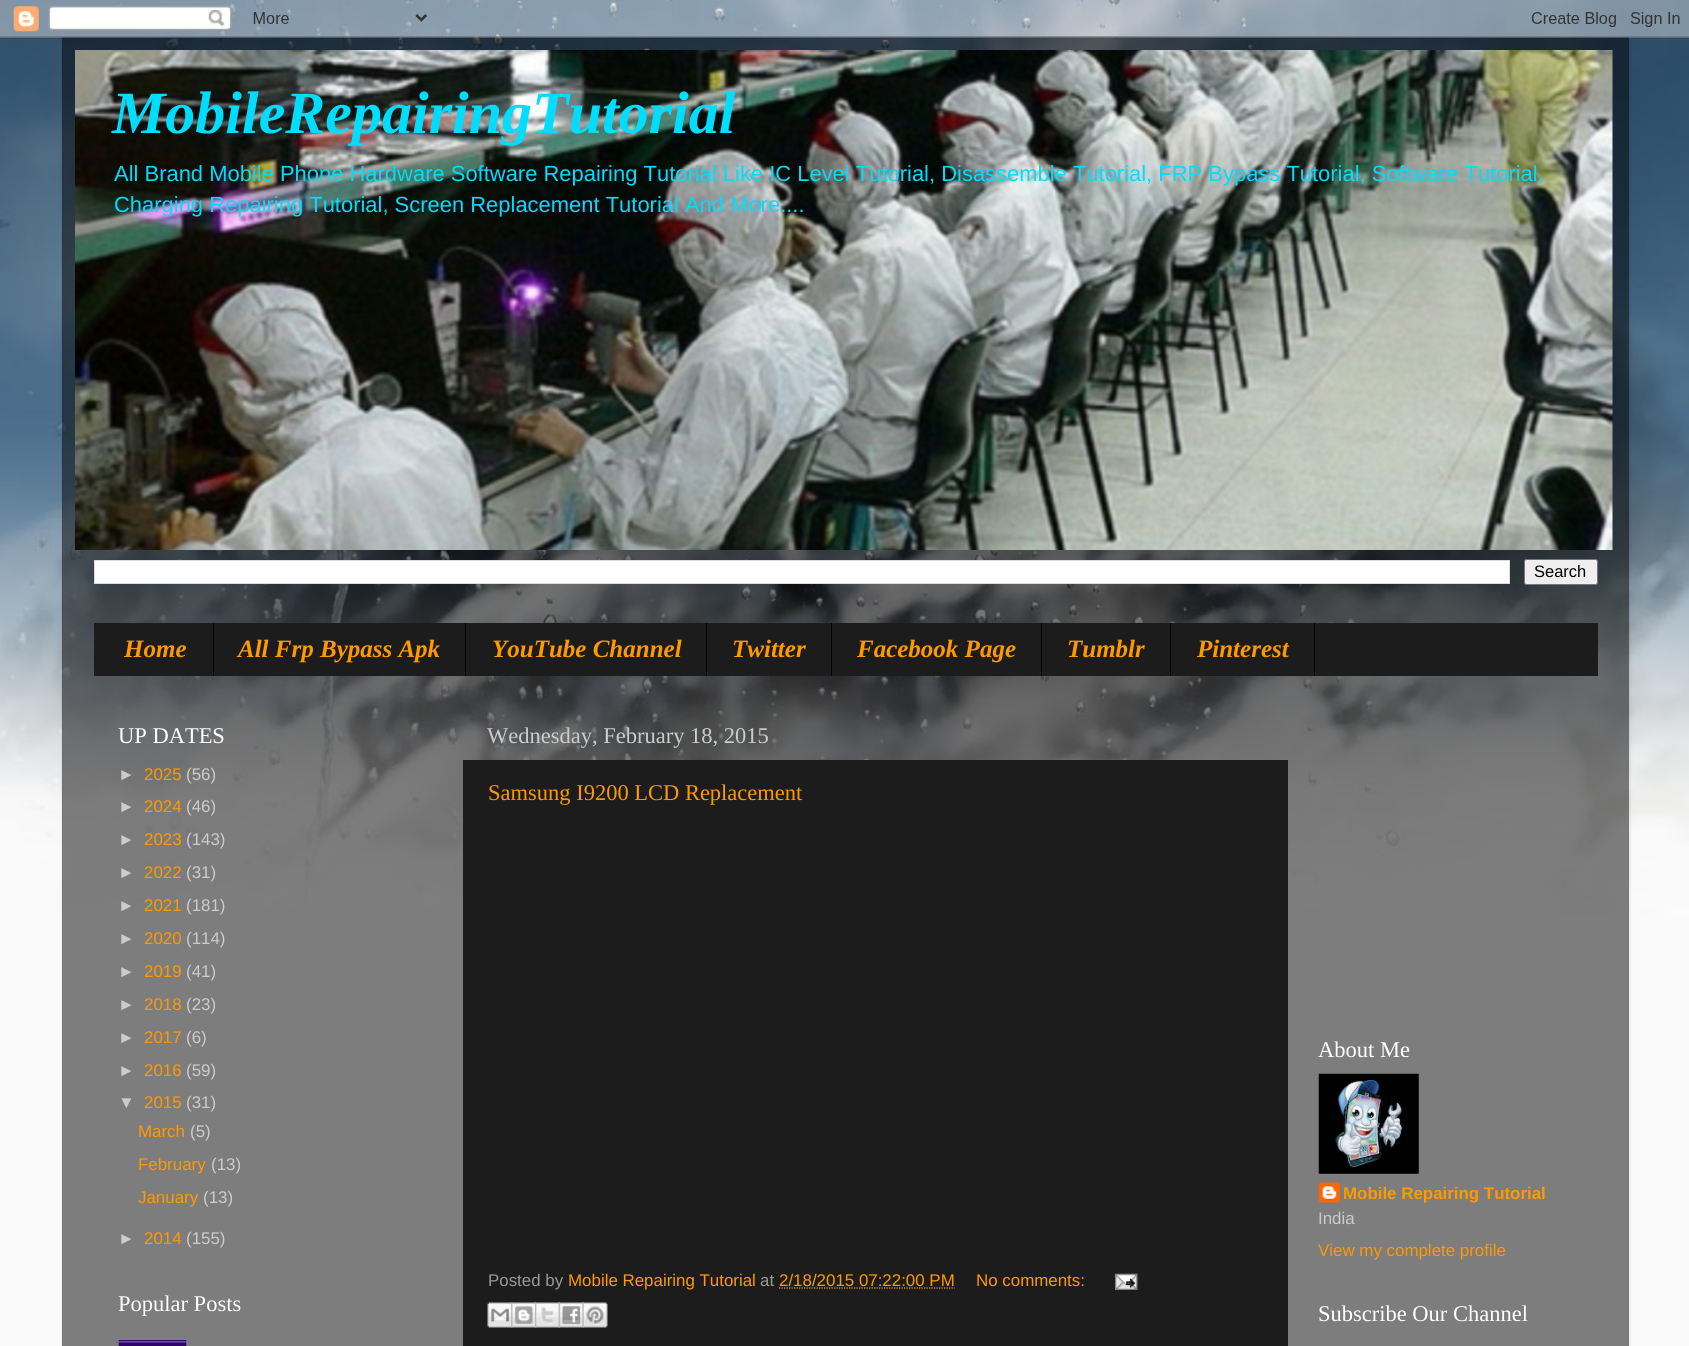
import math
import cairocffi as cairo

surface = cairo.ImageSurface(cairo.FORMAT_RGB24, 1689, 1346)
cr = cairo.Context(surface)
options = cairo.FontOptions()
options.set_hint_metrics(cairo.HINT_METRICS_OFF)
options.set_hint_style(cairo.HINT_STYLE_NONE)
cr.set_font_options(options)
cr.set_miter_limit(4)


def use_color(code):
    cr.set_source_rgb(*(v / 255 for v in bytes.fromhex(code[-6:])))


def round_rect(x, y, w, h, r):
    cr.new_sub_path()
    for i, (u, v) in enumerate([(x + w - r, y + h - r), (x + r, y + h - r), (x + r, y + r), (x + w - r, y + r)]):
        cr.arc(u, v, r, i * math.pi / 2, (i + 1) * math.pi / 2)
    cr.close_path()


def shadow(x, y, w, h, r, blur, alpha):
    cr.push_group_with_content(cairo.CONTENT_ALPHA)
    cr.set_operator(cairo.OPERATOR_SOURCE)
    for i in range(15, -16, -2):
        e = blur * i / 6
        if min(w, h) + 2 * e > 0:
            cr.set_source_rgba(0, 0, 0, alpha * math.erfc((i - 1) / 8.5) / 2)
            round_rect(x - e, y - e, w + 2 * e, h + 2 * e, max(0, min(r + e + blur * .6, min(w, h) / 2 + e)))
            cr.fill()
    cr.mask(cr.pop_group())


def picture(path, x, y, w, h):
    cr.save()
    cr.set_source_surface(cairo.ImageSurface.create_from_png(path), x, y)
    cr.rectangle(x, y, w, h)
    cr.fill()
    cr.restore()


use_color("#fafafa")
cr.paint()
picture("img1.png", 0, 0, 1689, 918)
cr.save()
cr.set_fill_rule(cairo.FILL_RULE_EVEN_ODD)
cr.new_path()
cr.move_to(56, 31)
cr.line_to(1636, 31)
cr.line_to(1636, 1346)
cr.line_to(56, 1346)
cr.close_path()
cr.move_to(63, 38)
cr.line_to(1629, 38)
cr.line_to(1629, 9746)
cr.line_to(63, 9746)
cr.close_path()
cr.clip()
use_color("#000000")
shadow(63, 38, 1566, 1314, 0, 2, 0.15)
cr.restore()
cr.set_source_rgba(0, 0, 0, 0.5)
cr.rectangle(62, 37, 1567, 1309)
cr.fill()
picture("img2.png", 0, 0, 1689, 38)
picture("img3.png", 75, 50, 1538, 500)
cr.select_font_face("Liberation Serif", cairo.FONT_SLANT_ITALIC, cairo.FONT_WEIGHT_BOLD)
cr.set_font_size(60)
use_color("#00ddff")
cr.move_to(112, 133)
cr.show_text("MobileRepairingTutorial")
cr.select_font_face("Liberation Sans")
cr.set_font_size(21.95)
cr.move_to(114, 181)
cr.show_text("All Brand Mobile Phone Hardware Software Repairing Tutorial Like IC Level Tutorial, Disassemble Tutorial, FRP Bypass Tutorial, Software Tutorial,")
cr.move_to(114, 212)
cr.show_text("Charging Repairing Tutorial, Screen Replacement Tutorial And More....")
use_color("#ffffff")
cr.rectangle(94.5, 560.5, 1415, 23)
cr.fill_preserve()
use_color("#dddddd")
cr.set_line_width(1)
cr.stroke()
use_color("#efefef")
round_rect(1524.5, 559.5, 73, 25, 2)
cr.fill_preserve()
use_color("#767676")
cr.stroke()
cr.set_font_size(16.5)
use_color("#000000")
cr.move_to(1534, 577)
cr.show_text("Search")
use_color("#1c1c1c")
cr.rectangle(94, 623, 1504, 53)
cr.fill()
use_color("#000000")
cr.rectangle(213, 623, 1, 53)
cr.fill()
cr.select_font_face("Liberation Serif", cairo.FONT_SLANT_ITALIC, cairo.FONT_WEIGHT_BOLD)
cr.set_font_size(25)
use_color("#ff9900")
cr.move_to(124, 657)
cr.show_text("Home")
use_color("#000000")
cr.rectangle(465, 623, 1, 53)
cr.fill()
use_color("#ff9900")
cr.move_to(238, 657)
cr.show_text("All Frp Bypass Apk")
use_color("#000000")
cr.rectangle(706, 623, 1, 53)
cr.fill()
use_color("#ff9900")
cr.move_to(492, 657)
cr.show_text("YouTube Channel")
use_color("#000000")
cr.rectangle(831, 623, 1, 53)
cr.fill()
use_color("#ff9900")
cr.move_to(732, 657)
cr.show_text("Twitter")
use_color("#000000")
cr.rectangle(1041, 623, 1, 53)
cr.fill()
use_color("#ff9900")
cr.move_to(857, 657)
cr.show_text("Facebook Page")
use_color("#000000")
cr.rectangle(1170, 623, 1, 53)
cr.fill()
use_color("#ff9900")
cr.move_to(1067, 657)
cr.show_text("Tumblr")
use_color("#000000")
cr.rectangle(1314, 623, 1, 53)
cr.fill()
use_color("#ff9900")
cr.move_to(1197, 657)
cr.show_text("Pinterest")
cr.select_font_face("Liberation Serif")
cr.set_font_size(22.5)
use_color("#ffffff")
cr.move_to(118, 743)
cr.show_text("UP DATES")
cr.select_font_face("Liberation Sans")
cr.set_font_size(16.9)
use_color("#cccccc")
cr.move_to(118, 780)
cr.show_text("►")
use_color("#ff9900")
cr.move_to(144, 780)
cr.show_text("2025")
use_color("#cccccc")
cr.move_to(186, 780)
cr.show_text("(56)")
cr.move_to(118, 812)
cr.show_text("►")
use_color("#ff9900")
cr.move_to(144, 812)
cr.show_text("2024")
use_color("#cccccc")
cr.move_to(186, 812)
cr.show_text("(46)")
cr.move_to(118, 845)
cr.show_text("►")
use_color("#ff9900")
cr.move_to(144, 845)
cr.show_text("2023")
use_color("#cccccc")
cr.move_to(186, 845)
cr.show_text("(143)")
cr.move_to(118, 878)
cr.show_text("►")
use_color("#ff9900")
cr.move_to(144, 878)
cr.show_text("2022")
use_color("#cccccc")
cr.move_to(186, 878)
cr.show_text("(31)")
cr.move_to(118, 911)
cr.show_text("►")
use_color("#ff9900")
cr.move_to(144, 911)
cr.show_text("2021")
use_color("#cccccc")
cr.move_to(186, 911)
cr.show_text("(181)")
cr.move_to(118, 944)
cr.show_text("►")
use_color("#ff9900")
cr.move_to(144, 944)
cr.show_text("2020")
use_color("#cccccc")
cr.move_to(186, 944)
cr.show_text("(114)")
cr.move_to(118, 977)
cr.show_text("►")
use_color("#ff9900")
cr.move_to(144, 977)
cr.show_text("2019")
use_color("#cccccc")
cr.move_to(186, 977)
cr.show_text("(41)")
cr.move_to(118, 1010)
cr.show_text("►")
use_color("#ff9900")
cr.move_to(144, 1010)
cr.show_text("2018")
use_color("#cccccc")
cr.move_to(186, 1010)
cr.show_text("(23)")
cr.move_to(118, 1043)
cr.show_text("►")
use_color("#ff9900")
cr.move_to(144, 1043)
cr.show_text("2017")
use_color("#cccccc")
cr.move_to(186, 1043)
cr.show_text("(6)")
cr.move_to(118, 1076)
cr.show_text("►")
use_color("#ff9900")
cr.move_to(144, 1076)
cr.show_text("2016")
use_color("#cccccc")
cr.move_to(186, 1076)
cr.show_text("(59)")
cr.move_to(118, 1108)
cr.show_text("▼")
use_color("#ff9900")
cr.move_to(144, 1108)
cr.show_text("2015")
use_color("#cccccc")
cr.move_to(186, 1108)
cr.show_text("(31)")
use_color("#ff9900")
cr.move_to(138, 1137)
cr.show_text("March")
use_color("#cccccc")
cr.move_to(190, 1137)
cr.show_text("(5)")
use_color("#ff9900")
cr.move_to(138, 1170)
cr.show_text("February")
use_color("#cccccc")
cr.move_to(211, 1170)
cr.show_text("(13)")
use_color("#ff9900")
cr.move_to(138, 1203)
cr.show_text("January")
use_color("#cccccc")
cr.move_to(203, 1203)
cr.show_text("(13)")
cr.move_to(118, 1244)
cr.show_text("►")
use_color("#ff9900")
cr.move_to(144, 1244)
cr.show_text("2014")
use_color("#cccccc")
cr.move_to(186, 1244)
cr.show_text("(155)")
cr.select_font_face("Liberation Serif")
cr.set_font_size(22.5)
use_color("#ffffff")
cr.move_to(118, 1311)
cr.show_text("Popular Posts")
picture("img4.png", 118, 1340, 69, 6)
use_color("#cccccc")
cr.move_to(487, 743)
cr.show_text("Wednesday, February 18, 2015")
use_color("#1c1c1c")
cr.rectangle(463, 760, 825, 586)
cr.fill()
use_color("#ff9900")
cr.move_to(488, 800)
cr.show_text("Samsung I9200 LCD Replacement")
cr.select_font_face("Liberation Sans")
cr.set_font_size(16.9)
use_color("#999999")
cr.move_to(488, 1286)
cr.show_text("Posted by")
use_color("#ff9900")
cr.move_to(568, 1286)
cr.show_text("Mobile Repairing Tutorial")
use_color("#999999")
cr.move_to(760, 1286)
cr.show_text("at")
use_color("#ff9900")
cr.move_to(779, 1286)
cr.show_text("2/18/2015 07:22:00 PM")
cr.new_path()
cr.move_to(779, 1288)
cr.line_to(954.5, 1288)
cr.set_line_width(1.2)
cr.set_dash([1.25, 1.25])
cr.stroke()
cr.move_to(976, 1286)
cr.show_text("No comments:")
picture("img5.png", 1115, 1273, 23, 17)
picture("img6.png", 487, 1302, 26, 26)
picture("img7.png", 511, 1302, 26, 26)
picture("img8.png", 535, 1302, 25, 26)
picture("img9.png", 558, 1302, 26, 26)
picture("img10.png", 582, 1302, 26, 26)
cr.select_font_face("Liberation Serif")
cr.set_font_size(22.5)
use_color("#ffffff")
cr.move_to(1318, 1057)
cr.show_text("About Me")
picture("img11.png", 1318, 1073, 101, 101)
picture("img12.png", 1318, 1182, 22, 21)
cr.select_font_face("Liberation Sans", cairo.FONT_SLANT_NORMAL, cairo.FONT_WEIGHT_BOLD)
cr.set_font_size(16.9)
use_color("#ff9900")
cr.move_to(1343, 1199)
cr.show_text("Mobile Repairing Tutorial")
cr.select_font_face("Liberation Sans")
use_color("#cccccc")
cr.move_to(1318, 1224)
cr.show_text("India")
use_color("#ff9900")
cr.move_to(1318, 1256)
cr.show_text("View my complete profile")
cr.select_font_face("Liberation Serif")
cr.set_font_size(22.5)
use_color("#ffffff")
cr.move_to(1318, 1321)
cr.show_text("Subscribe Our Channel")
surface.write_to_png("result.png")
